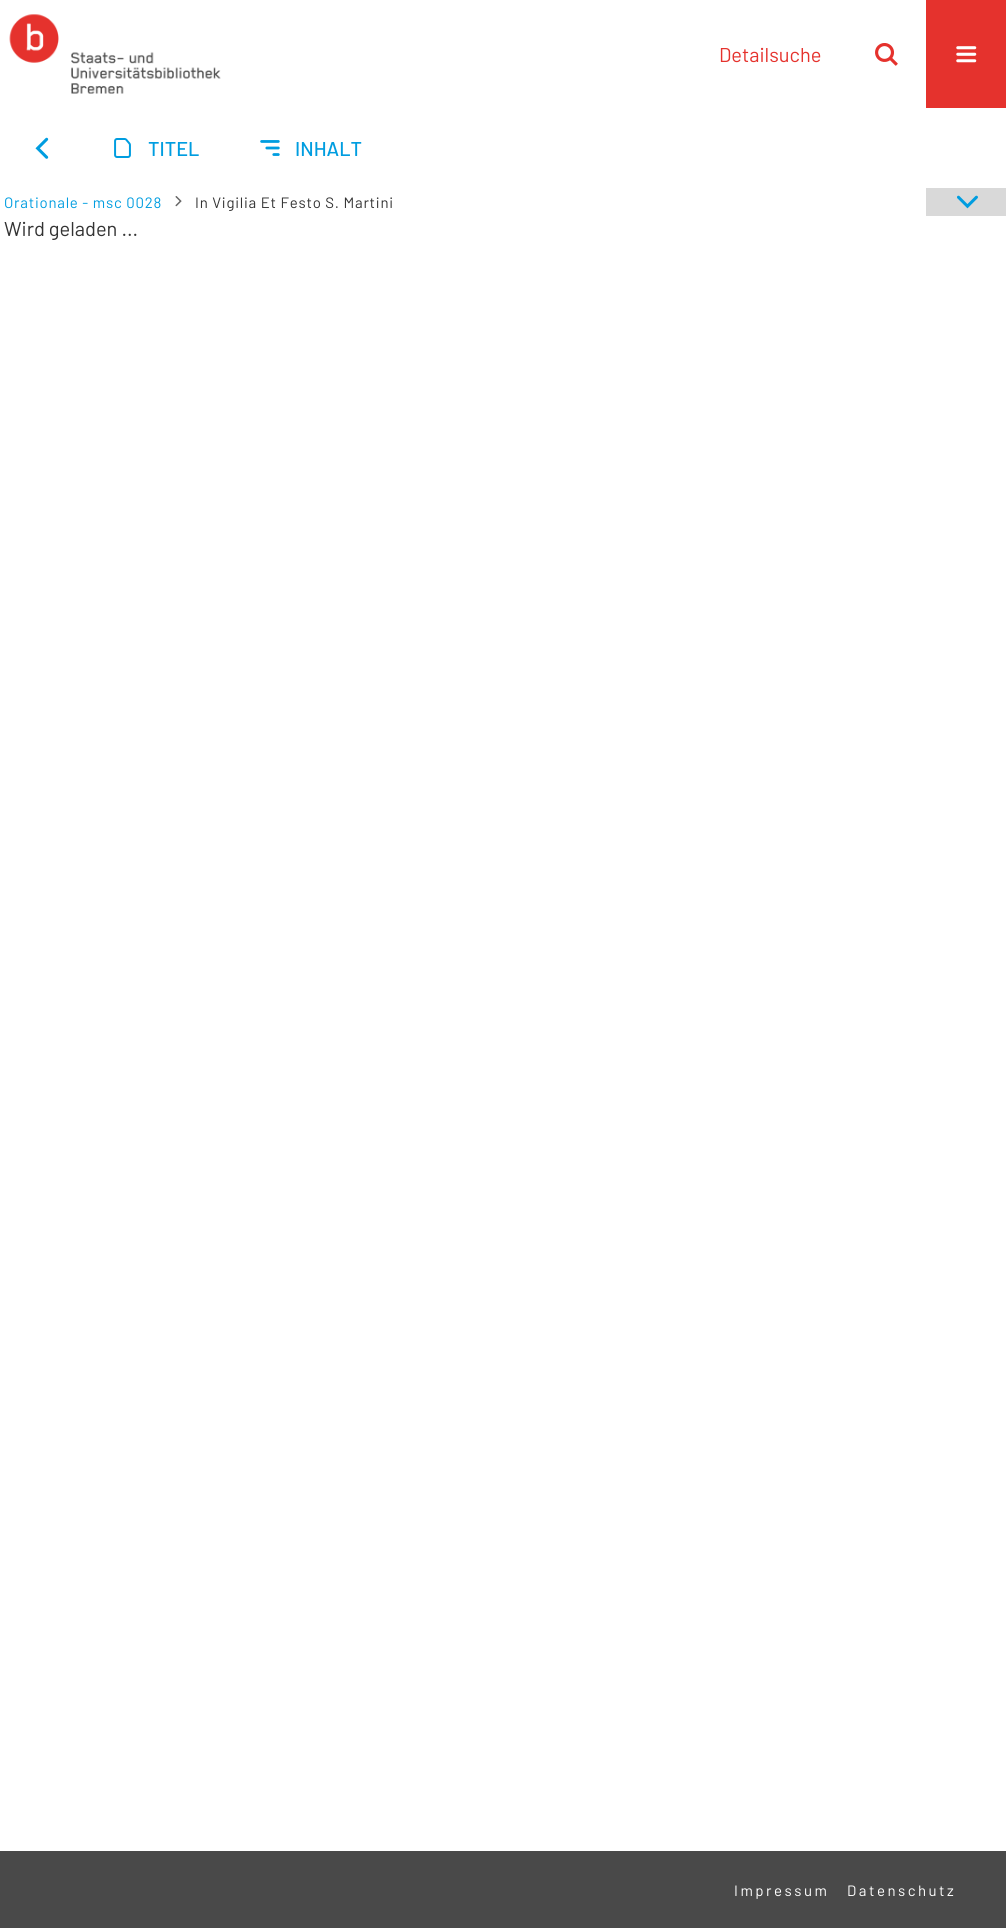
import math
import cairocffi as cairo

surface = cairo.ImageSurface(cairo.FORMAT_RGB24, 1006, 1928)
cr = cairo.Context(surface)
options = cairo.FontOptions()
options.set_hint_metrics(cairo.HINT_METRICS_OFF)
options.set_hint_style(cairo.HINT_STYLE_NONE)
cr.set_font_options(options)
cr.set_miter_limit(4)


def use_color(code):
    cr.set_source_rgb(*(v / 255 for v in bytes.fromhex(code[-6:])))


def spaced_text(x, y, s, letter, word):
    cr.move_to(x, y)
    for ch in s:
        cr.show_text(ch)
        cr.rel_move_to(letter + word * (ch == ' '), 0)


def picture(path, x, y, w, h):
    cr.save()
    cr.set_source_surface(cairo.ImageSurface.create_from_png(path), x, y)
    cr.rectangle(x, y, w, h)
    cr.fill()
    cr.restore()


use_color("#ffffff")
cr.paint()
picture("img1.png", 9, 14, 212, 80)
cr.select_font_face("Barlow")
cr.set_font_size(20)
use_color("#e5322d")
cr.move_to(719, 62)
cr.show_text("Detailsuche")
picture("img2.png", 875, 43, 23, 23)
cr.rectangle(926, 0, 80, 108)
cr.fill()
picture("img3.png", 956, 46, 21, 17)
picture("img4.png", 35, 137, 14, 22)
picture("img5.png", 114, 138, 17, 20)
cr.select_font_face("Barlow Medium")
use_color("#009de0")
cr.move_to(148, 156)
cr.show_text("TITEL")
picture("img6.png", 260, 140, 20, 16)
cr.move_to(295, 156)
cr.show_text("INHALT")
cr.select_font_face("Barlow")
cr.set_font_size(15)
spaced_text(4, 208, "Orationale - msc 0028", 0.75, 0)
picture("img7.png", 175, 196, 7, 11)
use_color("#333333")
spaced_text(195, 208, "In Vigilia Et Festo S. Martini", 0.75, 0)
use_color("#d9d9d9")
cr.rectangle(926, 188, 80, 28)
cr.fill()
picture("img8.png", 957, 195, 21, 14)
cr.set_font_size(20)
use_color("#333333")
cr.move_to(4, 236)
cr.show_text("Wird geladen ...")
use_color("#494949")
cr.rectangle(0, 1851, 1006, 77)
cr.fill()
cr.set_font_size(15)
use_color("#ffffff")
spaced_text(734, 1896, "Impressum", 2.5, 0)
spaced_text(847, 1896, "Datenschutz", 2.5, 0)
surface.write_to_png("result.png")
